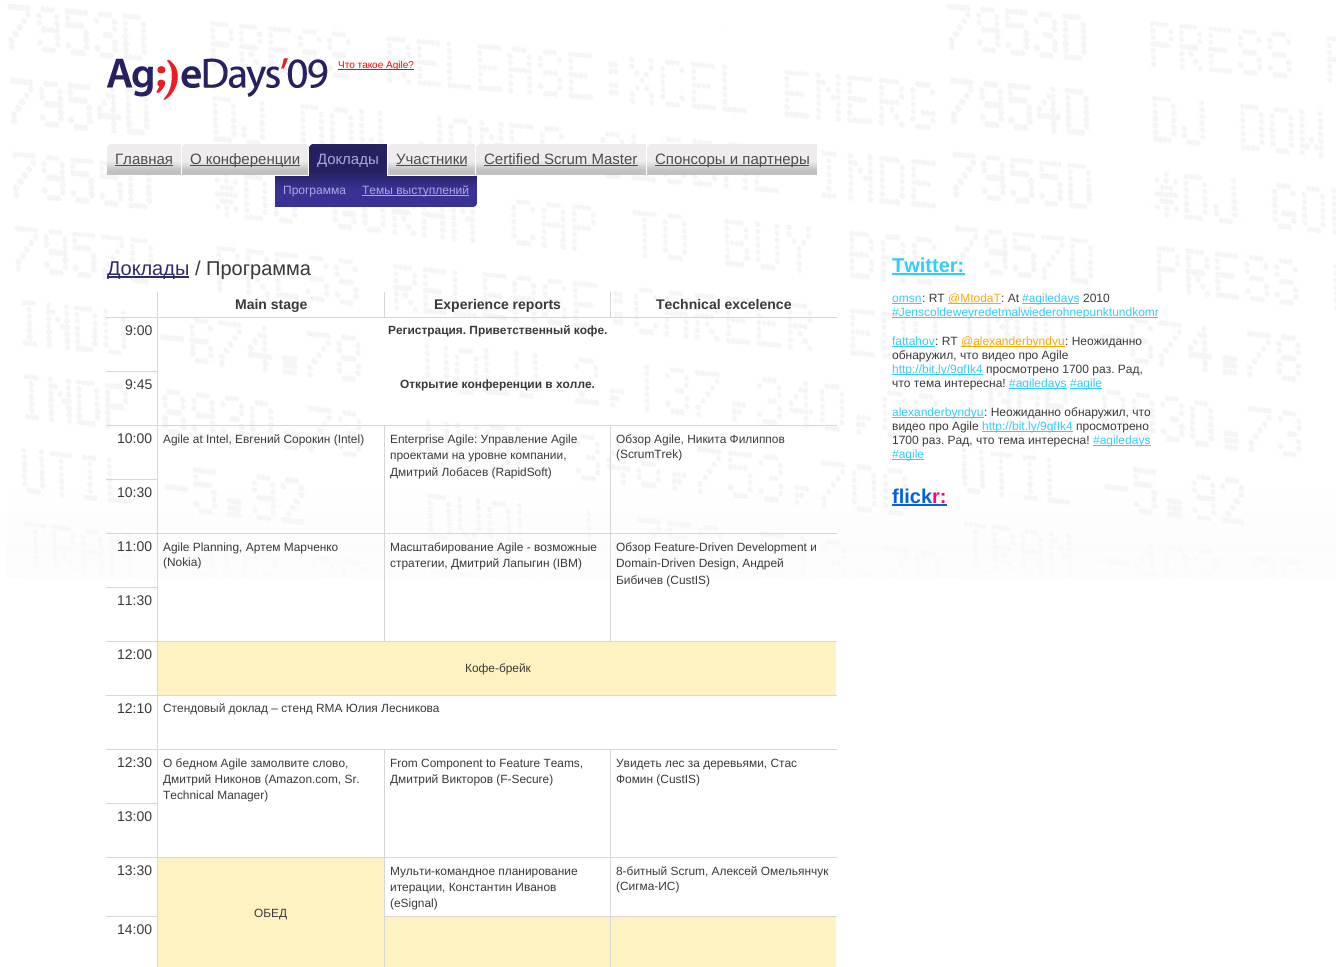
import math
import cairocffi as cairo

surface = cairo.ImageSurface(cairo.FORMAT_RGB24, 1336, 967)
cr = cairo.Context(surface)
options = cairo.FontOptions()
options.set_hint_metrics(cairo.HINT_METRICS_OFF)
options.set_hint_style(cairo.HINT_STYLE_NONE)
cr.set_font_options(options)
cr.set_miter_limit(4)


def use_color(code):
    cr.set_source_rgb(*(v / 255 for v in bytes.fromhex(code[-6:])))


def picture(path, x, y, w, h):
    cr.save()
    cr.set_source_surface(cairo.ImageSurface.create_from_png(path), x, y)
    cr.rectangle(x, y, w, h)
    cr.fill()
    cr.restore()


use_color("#ffffff")
cr.paint()
picture("img1.png", 7, 4, 1329, 574)
picture("img2.png", 107, 58, 221, 42)
use_color("#ff0000")
cr.rectangle(338, 69, 76, 1)
cr.fill()
cr.select_font_face("Liberation Sans")
cr.set_font_size(10)
cr.move_to(338, 68)
cr.show_text("Что такое Agile?")
picture("img3.png", 107, 144, 74, 31)
cr.set_font_size(15)
use_color("#4c4c4c")
cr.move_to(115, 164)
cr.show_text("Главная")
cr.rectangle(115, 165, 58, 1)
cr.fill()
picture("img4.png", 182, 144, 126, 31)
cr.rectangle(190, 165, 110, 1)
cr.fill()
cr.move_to(190, 164)
cr.show_text("О конференции")
picture("img5.png", 309, 144, 78, 32)
use_color("#252160")
cr.rectangle(384, 144, 3, 1)
cr.fill()
use_color("#aba7de")
cr.move_to(317, 164)
cr.show_text("Доклады")
picture("img6.png", 388, 144, 87, 31)
use_color("#4c4c4c")
cr.move_to(396, 164)
cr.show_text("Участники")
cr.rectangle(396, 165, 71, 1)
cr.fill()
picture("img7.png", 476, 144, 170, 31)
cr.move_to(484, 164)
cr.show_text("Certified Scrum Master")
cr.rectangle(484, 165, 154, 1)
cr.fill()
picture("img8.png", 647, 144, 170, 31)
cr.rectangle(655, 165, 154, 1)
cr.fill()
cr.move_to(655, 164)
cr.show_text("Спонсоры и партнеры")
picture("img9.png", 275, 176, 202, 31)
cr.set_font_size(12)
use_color("#aba7de")
cr.move_to(283, 194)
cr.show_text("Программа")
cr.rectangle(362, 195, 107, 1)
cr.fill()
cr.move_to(362, 194)
cr.show_text("Темы выступлений")
use_color("#302c68")
cr.rectangle(107, 276, 82, 2)
cr.fill()
cr.set_font_size(20)
cr.move_to(107, 275)
cr.show_text("Доклады")
use_color("#393939")
cr.move_to(195, 275)
cr.show_text("/ Программа")
use_color("#d7d7d7")
cr.rectangle(610, 317, 227, 1)
cr.fill()
cr.rectangle(610, 292, 1, 26)
cr.fill()
cr.rectangle(384, 317, 227, 1)
cr.fill()
cr.rectangle(384, 292, 1, 26)
cr.fill()
cr.rectangle(610, 641, 227, 1)
cr.fill()
cr.rectangle(610, 533, 1, 109)
cr.fill()
cr.rectangle(610, 533, 227, 1)
cr.fill()
cr.rectangle(610, 425, 1, 109)
cr.fill()
cr.rectangle(384, 641, 227, 1)
cr.fill()
cr.rectangle(384, 533, 1, 109)
cr.fill()
cr.rectangle(384, 533, 227, 1)
cr.fill()
cr.rectangle(384, 425, 1, 109)
cr.fill()
cr.rectangle(610, 916, 1, 51)
cr.fill()
cr.rectangle(610, 916, 227, 1)
cr.fill()
cr.rectangle(610, 857, 1, 60)
cr.fill()
cr.rectangle(610, 857, 227, 1)
cr.fill()
cr.rectangle(610, 749, 1, 109)
cr.fill()
cr.rectangle(384, 916, 1, 51)
cr.fill()
cr.rectangle(384, 916, 227, 1)
cr.fill()
cr.rectangle(384, 857, 1, 60)
cr.fill()
cr.rectangle(384, 857, 227, 1)
cr.fill()
cr.rectangle(384, 749, 1, 109)
cr.fill()
cr.rectangle(157, 857, 1, 110)
cr.fill()
cr.rectangle(106, 857, 52, 1)
cr.fill()
cr.rectangle(157, 857, 228, 1)
cr.fill()
cr.rectangle(157, 749, 1, 109)
cr.fill()
cr.rectangle(157, 749, 680, 1)
cr.fill()
cr.rectangle(157, 695, 1, 55)
cr.fill()
cr.rectangle(157, 695, 680, 1)
cr.fill()
cr.rectangle(157, 641, 1, 55)
cr.fill()
cr.rectangle(106, 641, 52, 1)
cr.fill()
cr.rectangle(157, 641, 228, 1)
cr.fill()
cr.rectangle(157, 533, 1, 109)
cr.fill()
cr.rectangle(106, 533, 52, 1)
cr.fill()
cr.rectangle(157, 533, 228, 1)
cr.fill()
cr.rectangle(157, 425, 1, 109)
cr.fill()
cr.rectangle(157, 425, 680, 1)
cr.fill()
cr.rectangle(157, 317, 1, 109)
cr.fill()
cr.rectangle(157, 317, 228, 1)
cr.fill()
cr.rectangle(157, 292, 1, 26)
cr.fill()
cr.select_font_face("Liberation Sans", cairo.FONT_SLANT_NORMAL, cairo.FONT_WEIGHT_BOLD)
cr.set_font_size(14)
use_color("#393939")
cr.move_to(235, 309)
cr.show_text("Main stage")
cr.move_to(434, 309)
cr.show_text("Experience reports")
cr.move_to(656, 309)
cr.show_text("Technical excelence")
use_color("#d7d7d7")
cr.rectangle(106, 317, 52, 1)
cr.fill()
cr.rectangle(106, 371, 52, 1)
cr.fill()
cr.select_font_face("Liberation Sans")
use_color("#393939")
cr.move_to(125, 335)
cr.show_text("9:00")
cr.select_font_face("Liberation Sans", cairo.FONT_SLANT_NORMAL, cairo.FONT_WEIGHT_BOLD)
cr.set_font_size(11.9)
cr.move_to(388, 334)
cr.show_text("Регистрация. Приветственный кофе.")
use_color("#d7d7d7")
cr.rectangle(106, 425, 52, 1)
cr.fill()
cr.select_font_face("Liberation Sans")
cr.set_font_size(14)
use_color("#393939")
cr.move_to(125, 389)
cr.show_text("9:45")
cr.select_font_face("Liberation Sans", cairo.FONT_SLANT_NORMAL, cairo.FONT_WEIGHT_BOLD)
cr.set_font_size(11.9)
cr.move_to(400, 388)
cr.show_text("Открытие конференции в холле.")
use_color("#d7d7d7")
cr.rectangle(106, 479, 52, 1)
cr.fill()
cr.select_font_face("Liberation Sans")
cr.set_font_size(14)
use_color("#393939")
cr.move_to(117, 443)
cr.show_text("10:00")
cr.set_font_size(11.9)
cr.move_to(163, 443)
cr.show_text("Agile at Intel, Евгений Сорокин (Intel)")
cr.move_to(390, 443)
cr.show_text("Enterprise Agile: Управление Agile")
cr.move_to(390, 459)
cr.show_text("проектами на уровне компании,")
cr.move_to(390, 476)
cr.show_text("Дмитрий Лобасев (RapidSoft)")
cr.move_to(616, 443)
cr.show_text("Обзор Agile, Никита Филиппов")
cr.move_to(616, 458)
cr.show_text("(ScrumTrek)")
cr.set_font_size(14)
cr.move_to(117, 497)
cr.show_text("10:30")
use_color("#d7d7d7")
cr.rectangle(106, 587, 52, 1)
cr.fill()
use_color("#393939")
cr.move_to(117, 551)
cr.show_text("11:00")
cr.set_font_size(11.9)
cr.move_to(163, 551)
cr.show_text("Agile Planning, Артем Марченко")
cr.move_to(163, 566)
cr.show_text("(Nokia)")
cr.move_to(390, 551)
cr.show_text("Масштабирование Agile - возможные")
cr.move_to(390, 567)
cr.show_text("стратегии, Дмитрий Лапыгин (IBM)")
cr.move_to(616, 551)
cr.show_text("Обзор Feature-Driven Development и")
cr.move_to(616, 567)
cr.show_text("Domain-Driven Design, Андрей")
cr.move_to(616, 584)
cr.show_text("Бибичев (CustIS)")
cr.set_font_size(14)
cr.move_to(117, 605)
cr.show_text("11:30")
use_color("#d7d7d7")
cr.rectangle(106, 695, 52, 1)
cr.fill()
use_color("#393939")
cr.move_to(117, 659)
cr.show_text("12:00")
use_color("#fff2c2")
cr.rectangle(158, 642, 678, 53)
cr.fill()
cr.set_font_size(11.9)
use_color("#393939")
cr.move_to(465, 672)
cr.show_text("Кофе-брейк")
use_color("#d7d7d7")
cr.rectangle(106, 749, 52, 1)
cr.fill()
cr.set_font_size(14)
use_color("#393939")
cr.move_to(117, 713)
cr.show_text("12:10")
cr.set_font_size(11.9)
cr.move_to(163, 712)
cr.show_text("Стендовый доклад – стенд RMA Юлия Лесникова")
use_color("#d7d7d7")
cr.rectangle(106, 803, 52, 1)
cr.fill()
cr.set_font_size(14)
use_color("#393939")
cr.move_to(117, 767)
cr.show_text("12:30")
cr.set_font_size(11.9)
cr.move_to(163, 767)
cr.show_text("О бедном Аgile замолвите слово,")
cr.move_to(163, 783)
cr.show_text("Дмитрий Никонов (Amazon.com, Sr.")
cr.move_to(163, 799)
cr.show_text("Technical Manager)")
cr.move_to(390, 767)
cr.show_text("From Component to Feature Teams,")
cr.move_to(390, 783)
cr.show_text("Дмитрий Викторов (F-Secure)")
cr.move_to(616, 767)
cr.show_text("Увидеть лес за деревьями, Стас")
cr.move_to(616, 783)
cr.show_text("Фомин (CustIS)")
cr.set_font_size(14)
cr.move_to(117, 821)
cr.show_text("13:00")
use_color("#d7d7d7")
cr.rectangle(106, 916, 52, 1)
cr.fill()
use_color("#393939")
cr.move_to(117, 875)
cr.show_text("13:30")
cr.set_font_size(11.9)
cr.move_to(390, 875)
cr.show_text("Мульти-командное планирование")
cr.move_to(390, 891)
cr.show_text("итерации, Константин Иванов")
cr.move_to(390, 907)
cr.show_text("(eSignal)")
cr.move_to(616, 875)
cr.show_text("8-битный Scrum, Алексей Омельянчук")
cr.move_to(616, 890)
cr.show_text("(Сигма-ИС)")
use_color("#fff2c2")
cr.rectangle(158, 858, 226, 109)
cr.fill()
use_color("#393939")
cr.move_to(254, 917)
cr.show_text("ОБЕД")
cr.set_font_size(14)
cr.move_to(117, 934)
cr.show_text("14:00")
use_color("#fff2c2")
cr.rectangle(385, 917, 225, 50)
cr.fill()
cr.rectangle(611, 917, 225, 50)
cr.fill()
cr.select_font_face("Liberation Sans", cairo.FONT_SLANT_NORMAL, cairo.FONT_WEIGHT_BOLD)
cr.set_font_size(20)
use_color("#33ccff")
cr.move_to(892, 272)
cr.show_text("Twitter:")
cr.rectangle(892, 273, 73, 2)
cr.fill()
cr.select_font_face("Liberation Sans")
cr.set_font_size(12)
cr.move_to(892, 302)
cr.show_text("omsn")
cr.rectangle(892, 303, 30, 1)
cr.fill()
use_color("#393939")
cr.move_to(922, 302)
cr.show_text(": RT")
use_color("#ffa800")
cr.rectangle(948, 303, 53, 1)
cr.fill()
cr.move_to(948, 302)
cr.show_text("@MtodaT")
use_color("#393939")
cr.move_to(1001, 302)
cr.show_text(": At")
use_color("#33ccff")
cr.rectangle(1022, 303, 57, 1)
cr.fill()
cr.move_to(1022, 302)
cr.show_text("#agiledays")
use_color("#393939")
cr.move_to(1083, 302)
cr.show_text("2010")
use_color("#33ccff")
cr.rectangle(892, 317, 266, 1)
cr.fill()
cr.save()
cr.rectangle(892, 291, 266, 43)
cr.clip()
cr.move_to(892, 316)
cr.show_text("#Jenscoldeweyredetmalwiederohnepunktundkomm")
cr.restore()
cr.move_to(892, 345)
cr.show_text("fattahov")
cr.rectangle(892, 346, 43, 1)
cr.fill()
use_color("#393939")
cr.move_to(935, 345)
cr.show_text(": RT")
use_color("#ffa800")
cr.rectangle(961, 346, 104, 1)
cr.fill()
cr.move_to(961, 345)
cr.show_text("@alexanderbyndyu")
use_color("#393939")
cr.move_to(1065, 345)
cr.show_text(": Неожиданно")
cr.move_to(892, 359)
cr.show_text("обнаружил, что видео про Agile")
use_color("#33ccff")
cr.rectangle(892, 374, 91, 1)
cr.fill()
cr.move_to(892, 373)
cr.show_text("http://bit.ly/9gfIk4")
use_color("#393939")
cr.move_to(986, 373)
cr.show_text("просмотрено 1700 раз. Рад,")
cr.move_to(892, 387)
cr.show_text("что тема интересна!")
use_color("#33ccff")
cr.rectangle(1009, 388, 58, 1)
cr.fill()
cr.move_to(1009, 387)
cr.show_text("#agiledays")
cr.rectangle(1070, 388, 32, 1)
cr.fill()
cr.move_to(1070, 387)
cr.show_text("#agile")
cr.rectangle(892, 417, 92, 1)
cr.fill()
cr.move_to(892, 416)
cr.show_text("alexanderbyndyu")
use_color("#393939")
cr.move_to(984, 416)
cr.show_text(": Неожиданно обнаружил, что")
cr.move_to(892, 430)
cr.show_text("видео про Agile")
use_color("#33ccff")
cr.rectangle(982, 431, 91, 1)
cr.fill()
cr.move_to(982, 430)
cr.show_text("http://bit.ly/9gfIk4")
use_color("#393939")
cr.move_to(1076, 430)
cr.show_text("просмотрено")
cr.move_to(892, 444)
cr.show_text("1700 раз. Рад, что тема интересна!")
use_color("#33ccff")
cr.rectangle(1093, 445, 58, 1)
cr.fill()
cr.move_to(1093, 444)
cr.show_text("#agiledays")
cr.rectangle(892, 459, 32, 1)
cr.fill()
cr.move_to(892, 458)
cr.show_text("#agile")
cr.select_font_face("Liberation Sans", cairo.FONT_SLANT_NORMAL, cairo.FONT_WEIGHT_BOLD)
cr.set_font_size(20)
use_color("#0063dc")
cr.move_to(892, 503)
cr.show_text("flick")
use_color("#ff0084")
cr.move_to(932, 503)
cr.show_text("r:")
use_color("#0063dc")
cr.rectangle(892, 504, 55, 2)
cr.fill()
surface.write_to_png("result.png")
